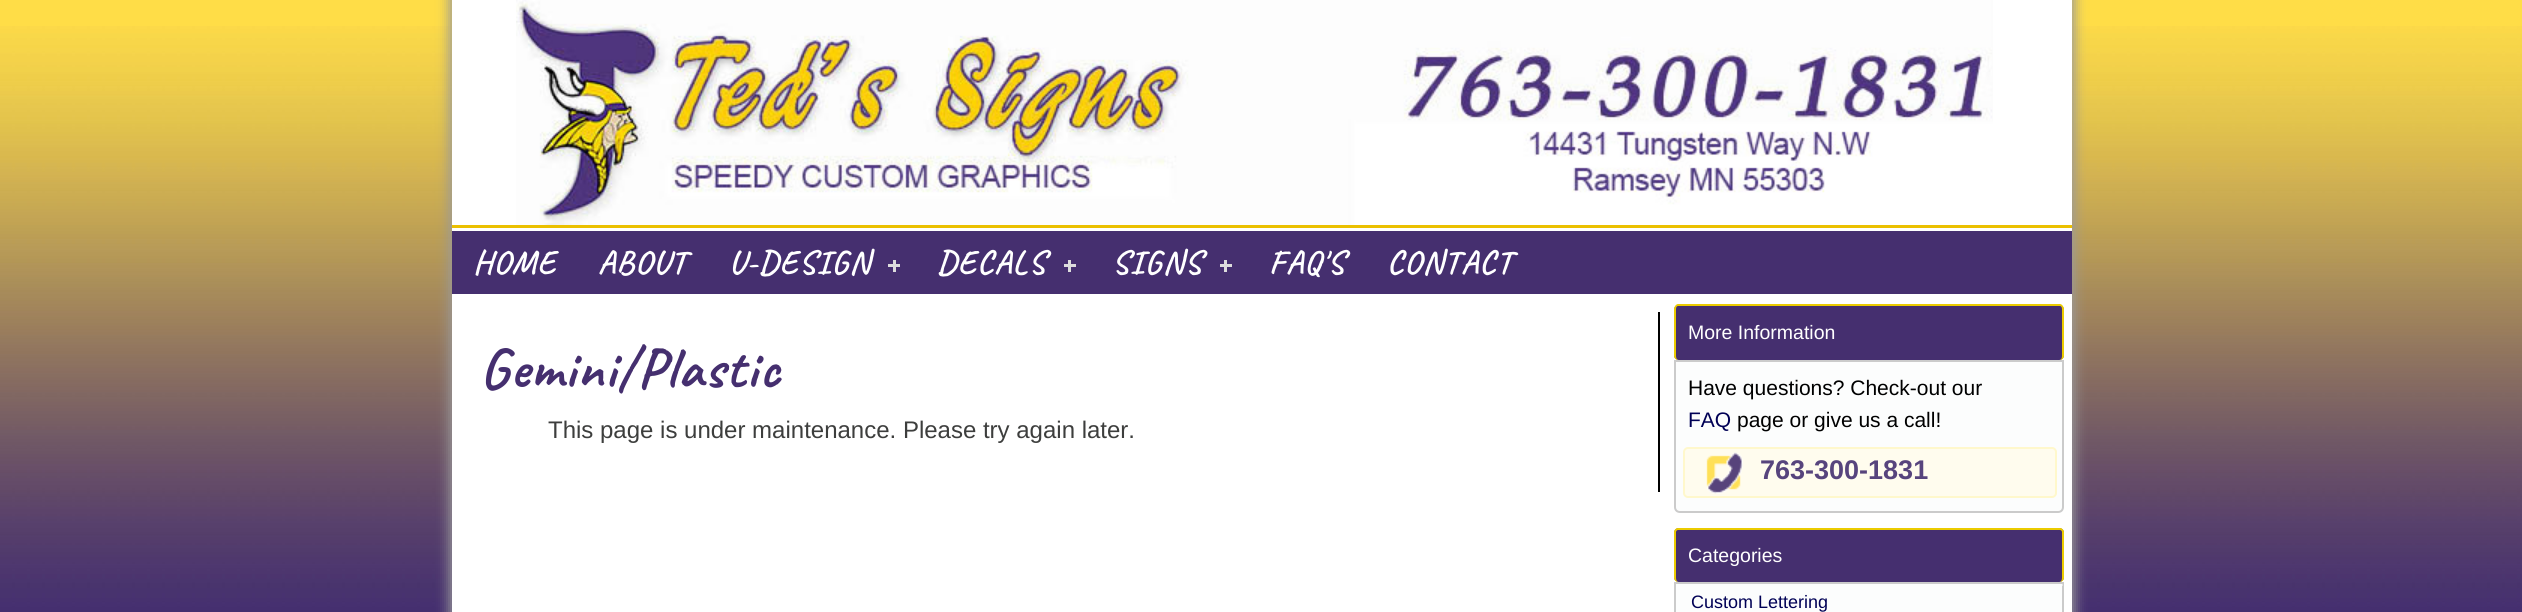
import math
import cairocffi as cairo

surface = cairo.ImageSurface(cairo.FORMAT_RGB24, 2522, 612)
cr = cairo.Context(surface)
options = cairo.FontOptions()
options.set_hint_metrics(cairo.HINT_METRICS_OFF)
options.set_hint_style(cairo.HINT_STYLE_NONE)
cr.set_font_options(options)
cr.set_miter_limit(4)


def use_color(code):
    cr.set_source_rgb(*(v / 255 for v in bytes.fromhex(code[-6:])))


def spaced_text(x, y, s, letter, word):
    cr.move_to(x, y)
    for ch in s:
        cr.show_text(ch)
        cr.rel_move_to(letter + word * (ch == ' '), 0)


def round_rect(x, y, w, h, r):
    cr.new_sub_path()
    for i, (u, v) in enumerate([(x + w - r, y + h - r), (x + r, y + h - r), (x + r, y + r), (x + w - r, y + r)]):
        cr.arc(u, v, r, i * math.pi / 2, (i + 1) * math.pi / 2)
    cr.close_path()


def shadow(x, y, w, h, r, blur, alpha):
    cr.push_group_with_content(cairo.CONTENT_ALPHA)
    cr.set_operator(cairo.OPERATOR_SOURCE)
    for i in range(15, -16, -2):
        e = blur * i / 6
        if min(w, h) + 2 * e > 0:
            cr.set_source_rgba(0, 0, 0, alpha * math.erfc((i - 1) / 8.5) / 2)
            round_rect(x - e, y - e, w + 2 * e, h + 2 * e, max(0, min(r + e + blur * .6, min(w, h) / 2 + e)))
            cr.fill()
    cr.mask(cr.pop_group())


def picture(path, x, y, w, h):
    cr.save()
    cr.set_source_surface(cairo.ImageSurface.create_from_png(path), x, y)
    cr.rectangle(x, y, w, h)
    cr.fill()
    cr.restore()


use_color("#ffdd47")
cr.paint()
picture("img1.png", 0, 26, 2522, 586)
use_color("#999999")
shadow(449, -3, 1626, 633, 0, 6, 1)
use_color("#ffffff")
cr.rectangle(452, 0, 1620, 612)
cr.fill()
picture("img2.png", 516, 0, 1477, 225)
use_color("#ebc000")
cr.rectangle(452, 225, 1620, 3)
cr.fill()
use_color("#452f6f")
cr.rectangle(452, 231, 1620, 63)
cr.fill()
cr.select_font_face("Caveat", cairo.FONT_SLANT_NORMAL, cairo.FONT_WEIGHT_BOLD)
cr.set_font_size(33)
use_color("#ffffff")
spaced_text(473, 273, "HOME", 1.5, 0)
spaced_text(598, 273, "ABOUT", 1.5, 0)
spaced_text(729, 273, "U-DESIGN", 1.5, 0)
use_color("#dddddd")
cr.rectangle(893, 260, 3, 12)
cr.fill()
cr.rectangle(888, 264, 12, 3)
cr.fill()
use_color("#ffffff")
spaced_text(937, 273, "DECALS", 1.5, 0)
use_color("#dddddd")
cr.rectangle(1068, 260, 3, 12)
cr.fill()
cr.rectangle(1064, 264, 12, 3)
cr.fill()
use_color("#ffffff")
spaced_text(1112, 273, "SIGNS", 1.5, 0)
use_color("#dddddd")
cr.rectangle(1224, 260, 3, 12)
cr.fill()
cr.rectangle(1220, 264, 12, 3)
cr.fill()
use_color("#ffffff")
spaced_text(1269, 273, "FAQ'S", 1.5, 0)
spaced_text(1387, 273, "CONTACT", 1.5, 0)
use_color("#000000")
cr.rectangle(1658, 312, 2, 180)
cr.fill()
cr.set_font_size(57)
use_color("#452f6f")
spaced_text(480, 387, "Gemini/Plastic", 1.5, 0)
cr.select_font_face("Liberation Sans")
cr.set_font_size(24)
use_color("#3d3e3d")
cr.move_to(548, 438)
cr.show_text("This page is under maintenance. Please try again later.")
use_color("#452f6f")
round_rect(1674, 305, 390, 55, 5)
cr.fill()
use_color("#ebcb00")
cr.set_fill_rule(cairo.FILL_RULE_EVEN_ODD)
cr.new_path()
cr.move_to(1678, 304)
cr.line_to(2060, 304)
cr.curve_to(2062, 304, 2064, 307, 2064, 309)
cr.line_to(2064, 356)
cr.curve_to(2064, 358, 2062, 360, 2060, 360)
cr.line_to(1678, 360)
cr.curve_to(1676, 360, 1674, 358, 1674, 356)
cr.line_to(1674, 309)
cr.curve_to(1674, 307, 1676, 304, 1678, 304)
cr.close_path()
cr.move_to(1678, 306)
cr.line_to(2060, 306)
cr.curve_to(2061, 306, 2062, 307, 2062, 309)
cr.line_to(2062, 356)
cr.curve_to(2062, 358, 2061, 360, 2060, 360)
cr.line_to(1678, 360)
cr.curve_to(1677, 360, 1676, 358, 1676, 356)
cr.line_to(1676, 309)
cr.curve_to(1676, 307, 1677, 306, 1678, 306)
cr.close_path()
cr.fill()
cr.set_font_size(19.5)
use_color("#ffffff")
cr.move_to(1688, 339)
cr.show_text("More Information")
use_color("#fcfdfd")
cr.new_path()
cr.move_to(1675, 361)
cr.line_to(2063, 361)
cr.line_to(2063, 507)
cr.curve_to(2063, 510, 2061, 512, 2058, 512)
cr.line_to(1680, 512)
cr.curve_to(1677, 512, 1675, 510, 1675, 507)
cr.close_path()
cr.fill_preserve()
use_color("#cbcbcb")
cr.stroke()
cr.set_font_size(21)
use_color("#000000")
cr.move_to(1688, 395)
cr.show_text("Have questions? Check-out our")
use_color("#000055")
cr.move_to(1688, 427)
cr.show_text("FAQ")
use_color("#000000")
cr.move_to(1737, 427)
cr.show_text("page or give us a call!")
use_color("#fffcee")
round_rect(1684, 448, 372, 49, 4)
cr.fill_preserve()
use_color("#fff8cc")
cr.stroke()
picture("img3.png", 1706, 452, 37, 42)
cr.select_font_face("Liberation Sans", cairo.FONT_SLANT_NORMAL, cairo.FONT_WEIGHT_BOLD)
cr.set_font_size(27)
use_color("#57447d")
cr.move_to(1760, 479)
cr.show_text("763-300-1831")
use_color("#452f6f")
round_rect(1674, 528, 390, 54, 5)
cr.fill()
use_color("#ebcb00")
cr.new_path()
cr.move_to(1678, 528)
cr.line_to(2060, 528)
cr.curve_to(2062, 528, 2064, 530, 2064, 532)
cr.line_to(2064, 578)
cr.curve_to(2064, 580, 2062, 582, 2060, 582)
cr.line_to(1678, 582)
cr.curve_to(1676, 582, 1674, 580, 1674, 578)
cr.line_to(1674, 532)
cr.curve_to(1674, 530, 1676, 528, 1678, 528)
cr.close_path()
cr.move_to(1678, 530)
cr.line_to(2060, 530)
cr.curve_to(2061, 530, 2062, 531, 2062, 532)
cr.line_to(2062, 578)
cr.curve_to(2062, 580, 2061, 582, 2060, 582)
cr.line_to(1678, 582)
cr.curve_to(1677, 582, 1676, 580, 1676, 578)
cr.line_to(1676, 532)
cr.curve_to(1676, 531, 1677, 530, 1678, 530)
cr.close_path()
cr.fill()
cr.select_font_face("Liberation Sans")
cr.set_font_size(19.5)
use_color("#ffffff")
cr.move_to(1688, 562)
cr.show_text("Categories")
use_color("#fcfdfd")
cr.rectangle(1675, 583, 388, 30)
cr.fill_preserve()
use_color("#cbcbcb")
cr.stroke()
cr.set_source_rgba(1, 1, 1, 0.45)
cr.rectangle(2062, 584, 1, 2)
cr.fill()
cr.set_font_size(18)
use_color("#000055")
cr.move_to(1691, 608)
cr.show_text("Custom Lettering")
surface.write_to_png("result.png")
